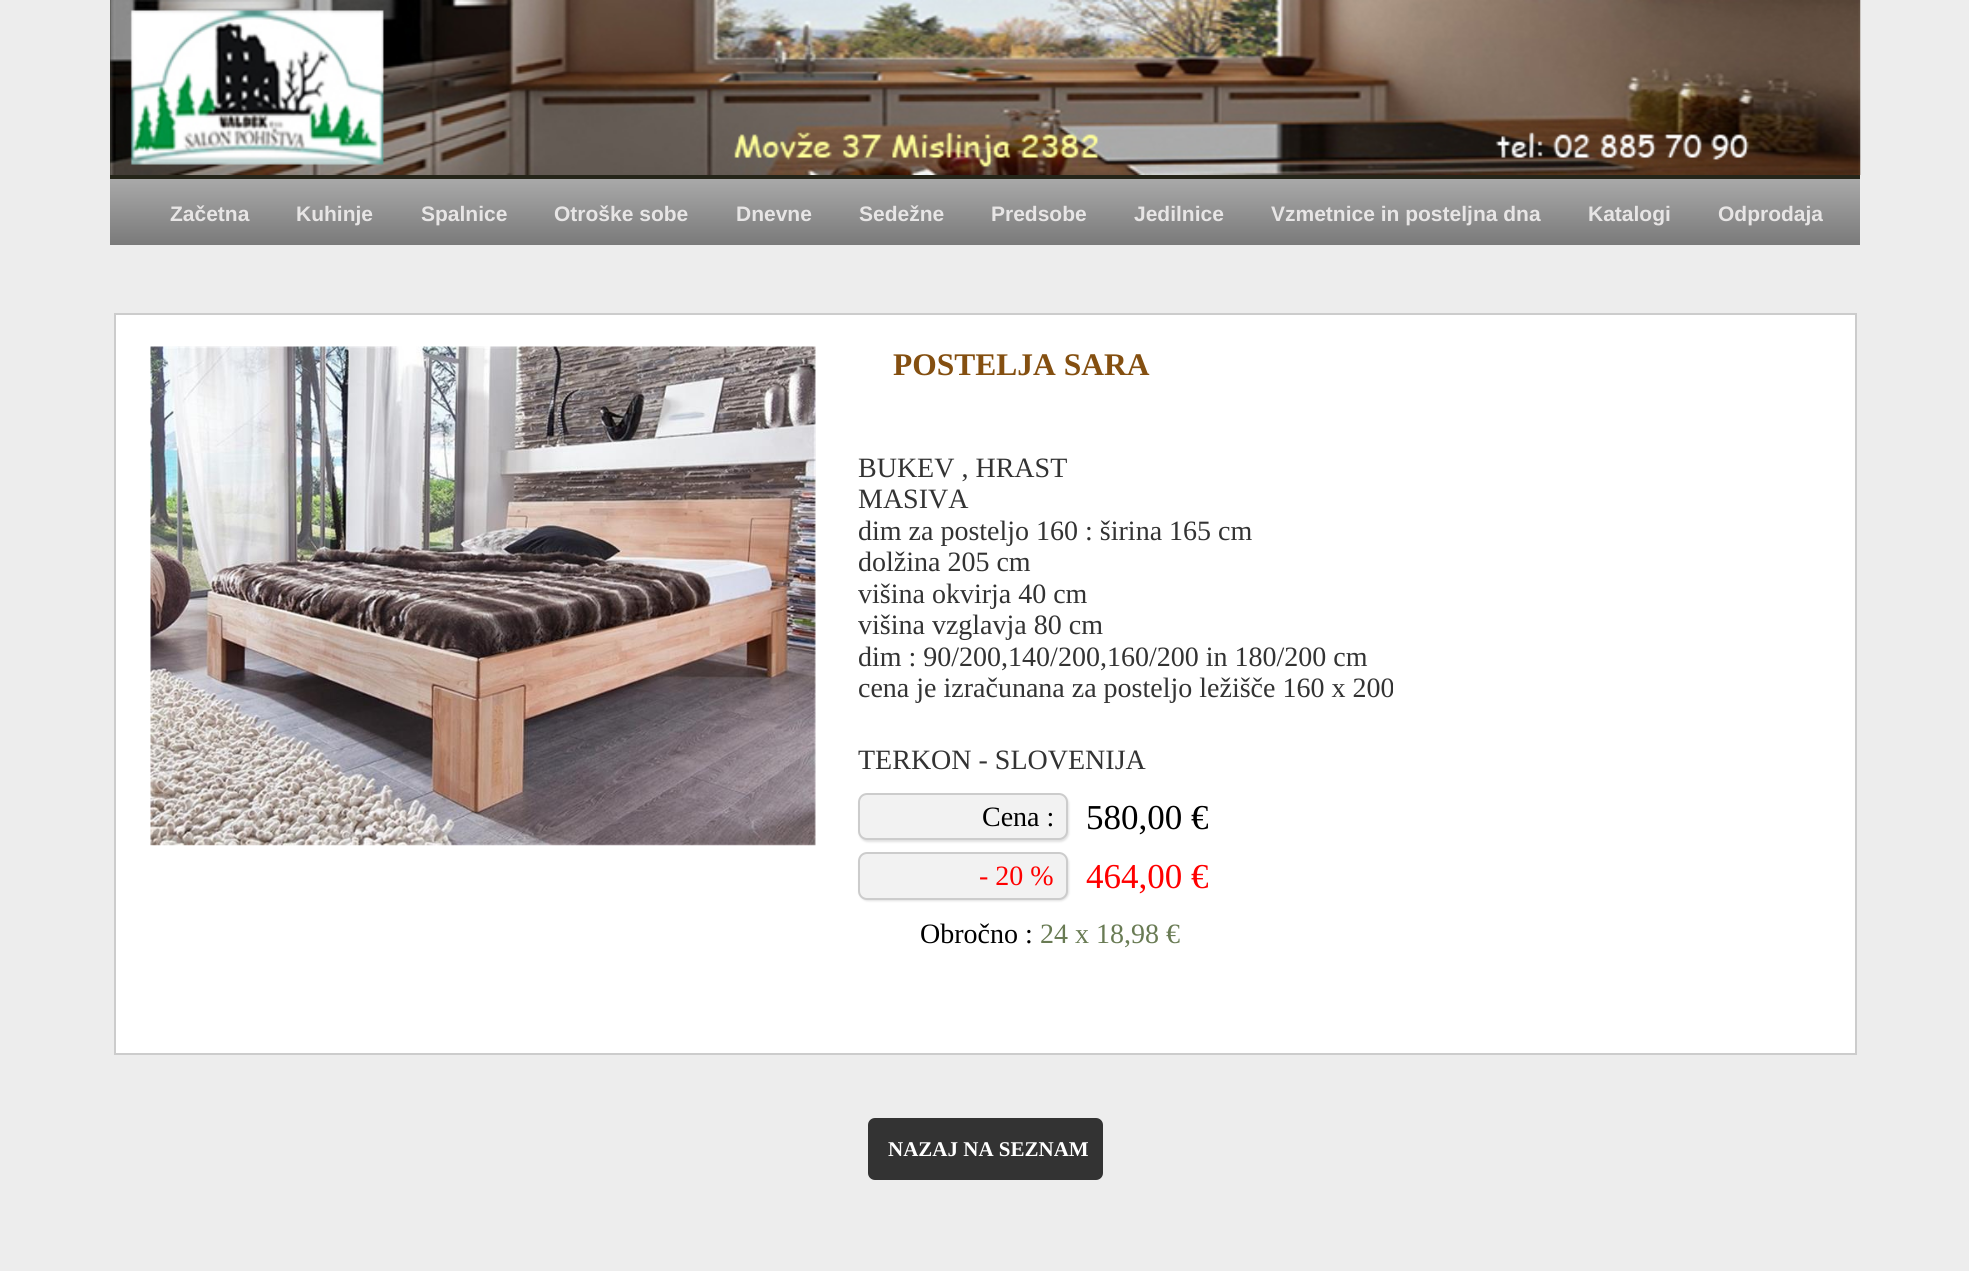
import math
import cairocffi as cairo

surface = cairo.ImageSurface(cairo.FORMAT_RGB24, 1969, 1271)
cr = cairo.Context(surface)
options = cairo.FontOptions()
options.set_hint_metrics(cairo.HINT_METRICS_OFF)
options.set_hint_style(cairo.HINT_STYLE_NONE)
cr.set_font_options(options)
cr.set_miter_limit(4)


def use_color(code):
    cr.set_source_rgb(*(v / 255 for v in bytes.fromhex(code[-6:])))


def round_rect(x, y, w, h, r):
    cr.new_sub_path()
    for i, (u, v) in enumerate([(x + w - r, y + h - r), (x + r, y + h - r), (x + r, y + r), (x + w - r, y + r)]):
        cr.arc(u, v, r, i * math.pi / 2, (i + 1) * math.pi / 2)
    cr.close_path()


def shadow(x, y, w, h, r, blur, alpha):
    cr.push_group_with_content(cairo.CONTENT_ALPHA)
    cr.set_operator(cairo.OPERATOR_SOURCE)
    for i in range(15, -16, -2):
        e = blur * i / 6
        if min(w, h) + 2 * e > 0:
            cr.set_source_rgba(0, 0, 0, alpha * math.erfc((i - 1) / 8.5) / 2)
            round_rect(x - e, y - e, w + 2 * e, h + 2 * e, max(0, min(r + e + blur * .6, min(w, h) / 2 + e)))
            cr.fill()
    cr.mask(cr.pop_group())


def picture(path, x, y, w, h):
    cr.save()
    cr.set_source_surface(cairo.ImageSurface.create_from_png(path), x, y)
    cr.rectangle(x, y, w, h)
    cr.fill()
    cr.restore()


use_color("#ededed")
cr.paint()
use_color("#252519")
cr.rectangle(110, 0, 1750, 179)
cr.fill()
picture("img1.png", 110, 0, 1751, 175)
gradient = cairo.LinearGradient(110, 179, 110, 245)
gradient.add_color_stop_rgba(0, 0.663, 0.663, 0.663, 1)
gradient.add_color_stop_rgba(1, 0.478, 0.478, 0.478, 1)
cr.set_source(gradient)
cr.rectangle(110, 179, 1750, 66)
cr.fill()
cr.select_font_face("Liberation Sans", cairo.FONT_SLANT_NORMAL, cairo.FONT_WEIGHT_BOLD)
cr.set_font_size(21)
use_color("#e7e5e5")
cr.move_to(170, 221)
cr.show_text("Začetna")
cr.move_to(296, 221)
cr.show_text("Kuhinje")
cr.move_to(421, 221)
cr.show_text("Spalnice")
cr.move_to(554, 221)
cr.show_text("Otroške sobe")
cr.move_to(736, 221)
cr.show_text("Dnevne")
cr.move_to(859, 221)
cr.show_text("Sedežne")
cr.move_to(991, 221)
cr.show_text("Predsobe")
cr.move_to(1134, 221)
cr.show_text("Jedilnice")
cr.move_to(1271, 221)
cr.show_text("Vzmetnice in posteljna dna")
cr.move_to(1588, 221)
cr.show_text("Katalogi")
cr.move_to(1718, 221)
cr.show_text("Odprodaja")
use_color("#ffffff")
cr.rectangle(115, 314, 1741, 740)
cr.fill_preserve()
use_color("#cccccc")
cr.stroke()
picture("img2.png", 150, 346, 666, 500)
cr.select_font_face("Liberation Serif", cairo.FONT_SLANT_NORMAL, cairo.FONT_WEIGHT_BOLD)
cr.set_font_size(31.5)
use_color("#844f10")
cr.move_to(893, 375)
cr.show_text("POSTELJA SARA")
cr.select_font_face("Liberation Serif")
cr.set_font_size(28)
use_color("#333333")
cr.move_to(858, 477)
cr.show_text("BUKEV , HRAST")
cr.move_to(858, 508)
cr.show_text("MASIVA")
cr.move_to(858, 540)
cr.show_text("dim za posteljo 160 : širina 165 cm")
cr.move_to(858, 571)
cr.show_text("dolžina 205 cm")
cr.move_to(858, 603)
cr.show_text("višina okvirja 40 cm")
cr.move_to(858, 634)
cr.show_text("višina vzglavja 80 cm")
cr.move_to(858, 666)
cr.show_text("dim : 90/200,140/200,160/200 in 180/200 cm")
cr.move_to(858, 697)
cr.show_text("cena je izračunana za posteljo ležišče 160 x 200")
cr.move_to(858, 769)
cr.show_text("TERKON - SLOVENIJA")
use_color("#e1e1e1")
shadow(859, 795, 210, 47, 9, 1, 1)
use_color("#f2f2f2")
round_rect(859, 794, 208, 45, 8)
cr.fill_preserve()
use_color("#cccccc")
cr.stroke()
use_color("#000000")
cr.move_to(982, 826)
cr.show_text("Cena :")
cr.set_font_size(35)
cr.move_to(1086, 829)
cr.show_text("580,00 €")
use_color("#e1e1e1")
shadow(859, 854, 210, 47, 9, 1, 1)
use_color("#f2f2f2")
round_rect(859, 853, 208, 46, 8)
cr.fill_preserve()
use_color("#cccccc")
cr.stroke()
cr.set_font_size(28)
use_color("#ff0000")
cr.move_to(979, 885)
cr.show_text("- 20 %")
cr.set_font_size(35)
cr.move_to(1086, 888)
cr.show_text("464,00 €")
cr.set_font_size(28)
use_color("#000000")
cr.move_to(920, 943)
cr.show_text("Obročno :")
use_color("#697b54")
cr.move_to(1040, 943)
cr.show_text("24 x 18,98 €")
use_color("#333333")
round_rect(868, 1118, 235, 62, 7)
cr.fill()
cr.select_font_face("Liberation Serif", cairo.FONT_SLANT_NORMAL, cairo.FONT_WEIGHT_BOLD)
cr.set_font_size(21)
use_color("#ffffff")
cr.move_to(888, 1156)
cr.show_text("NAZAJ NA SEZNAM")
surface.write_to_png("result.png")
